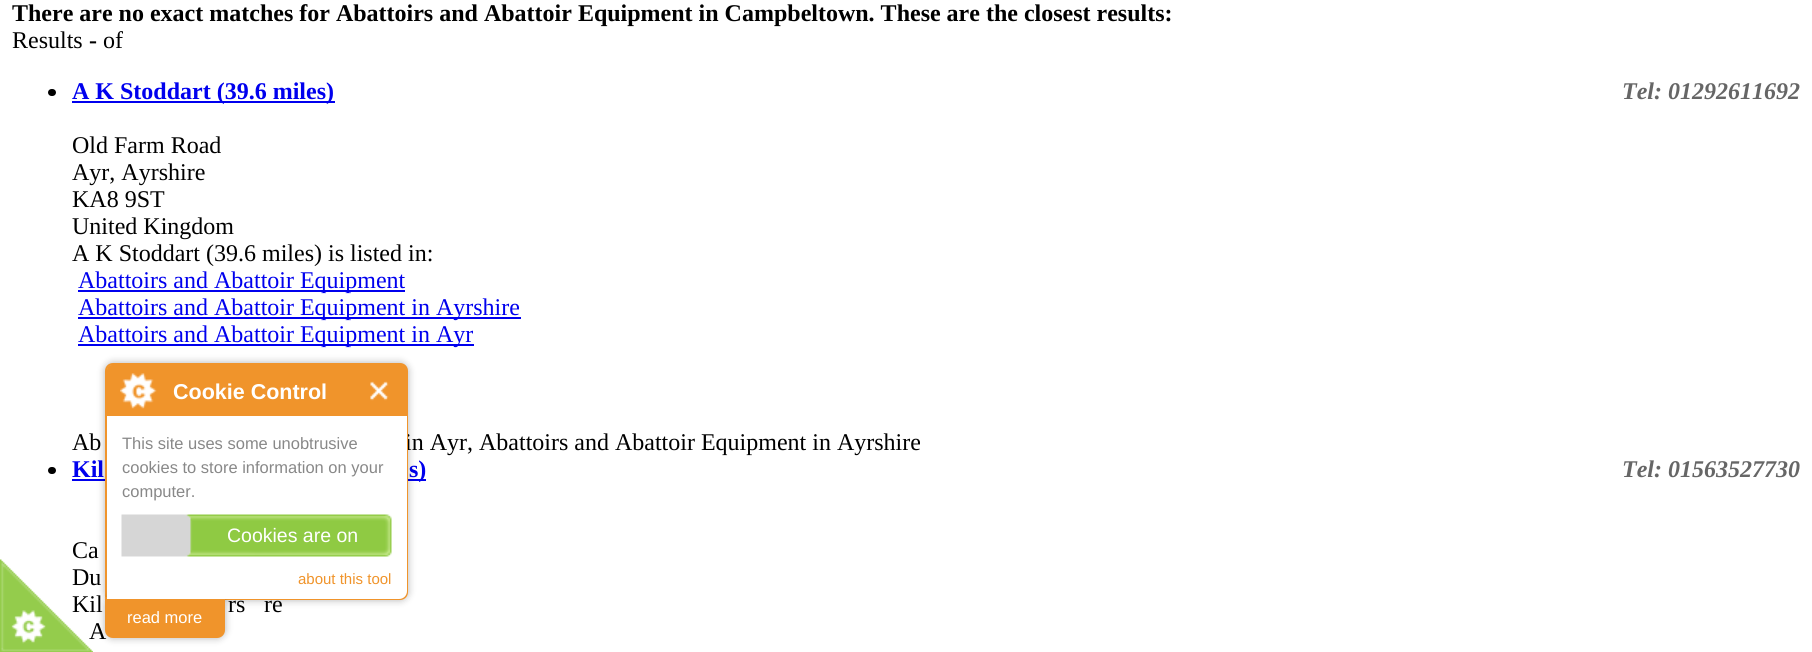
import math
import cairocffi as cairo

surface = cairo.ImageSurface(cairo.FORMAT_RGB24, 1812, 652)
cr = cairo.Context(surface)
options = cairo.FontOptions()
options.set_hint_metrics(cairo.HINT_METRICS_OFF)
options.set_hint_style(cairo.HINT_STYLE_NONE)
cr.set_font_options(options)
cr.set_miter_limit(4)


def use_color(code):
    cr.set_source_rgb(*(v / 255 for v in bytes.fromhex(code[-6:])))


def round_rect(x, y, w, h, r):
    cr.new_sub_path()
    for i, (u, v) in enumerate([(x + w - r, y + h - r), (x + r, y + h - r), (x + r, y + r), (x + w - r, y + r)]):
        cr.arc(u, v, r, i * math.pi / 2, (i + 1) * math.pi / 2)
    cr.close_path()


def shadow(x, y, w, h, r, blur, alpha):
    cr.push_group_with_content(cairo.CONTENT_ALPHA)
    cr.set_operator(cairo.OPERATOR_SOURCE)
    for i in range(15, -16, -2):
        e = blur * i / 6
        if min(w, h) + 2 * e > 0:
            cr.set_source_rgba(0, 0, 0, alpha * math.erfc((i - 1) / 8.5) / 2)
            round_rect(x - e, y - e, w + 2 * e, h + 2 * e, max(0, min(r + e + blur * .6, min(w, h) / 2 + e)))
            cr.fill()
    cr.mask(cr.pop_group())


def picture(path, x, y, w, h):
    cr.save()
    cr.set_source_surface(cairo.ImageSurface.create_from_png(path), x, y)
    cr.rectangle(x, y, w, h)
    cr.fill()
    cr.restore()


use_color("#ffffff")
cr.paint()
cr.select_font_face("Liberation Serif", cairo.FONT_SLANT_NORMAL, cairo.FONT_WEIGHT_BOLD)
cr.set_font_size(24)
use_color("#000000")
cr.move_to(12, 21)
cr.show_text("There are no exact matches for Abattoirs and Abattoir Equipment in Campbeltown. These are the closest results:")
cr.select_font_face("Liberation Serif")
cr.move_to(12, 48)
cr.show_text("Results")
cr.select_font_face("Liberation Serif", cairo.FONT_SLANT_NORMAL, cairo.FONT_WEIGHT_BOLD)
cr.move_to(89, 48)
cr.show_text("-")
cr.select_font_face("Liberation Serif")
cr.move_to(103, 48)
cr.show_text("of")
round_rect(48, 89, 8, 7, 3.5)
cr.fill()
use_color("#0000ee")
cr.rectangle(72, 101, 263, 2)
cr.fill()
cr.select_font_face("Liberation Serif", cairo.FONT_SLANT_NORMAL, cairo.FONT_WEIGHT_BOLD)
cr.move_to(72, 99)
cr.show_text("A K Stoddart (39.6 miles)")
cr.select_font_face("Liberation Serif", cairo.FONT_SLANT_ITALIC, cairo.FONT_WEIGHT_BOLD)
use_color("#666666")
cr.move_to(1622, 99)
cr.show_text("Tel: 01292611692")
cr.select_font_face("Liberation Serif")
use_color("#000000")
cr.move_to(72, 153)
cr.show_text("Old Farm Road")
cr.move_to(72, 180)
cr.show_text("Ayr, Ayrshire")
cr.move_to(72, 207)
cr.show_text("KA8 9ST")
cr.move_to(72, 234)
cr.show_text("United Kingdom")
cr.move_to(72, 261)
cr.show_text("A K Stoddart (39.6 miles) is listed in:")
use_color("#0000ee")
cr.rectangle(78, 290, 327, 2)
cr.fill()
cr.move_to(78, 288)
cr.show_text("Abattoirs and Abattoir Equipment")
cr.rectangle(78, 317, 443, 2)
cr.fill()
cr.move_to(78, 315)
cr.show_text("Abattoirs and Abattoir Equipment in Ayrshire")
cr.rectangle(78, 344, 396, 2)
cr.fill()
cr.move_to(78, 342)
cr.show_text("Abattoirs and Abattoir Equipment in Ayr")
use_color("#000000")
cr.move_to(72, 450)
cr.show_text("Ab")
cr.move_to(405, 450)
cr.show_text("in Ayr, Abattoirs and Abattoir Equipment in Ayrshire")
round_rect(48, 467, 8, 7, 3.5)
cr.fill()
cr.select_font_face("Liberation Serif", cairo.FONT_SLANT_NORMAL, cairo.FONT_WEIGHT_BOLD)
use_color("#0000ee")
cr.move_to(72, 477)
cr.show_text("Kil")
cr.rectangle(72, 479, 33, 2)
cr.fill()
cr.rectangle(408, 479, 18, 2)
cr.fill()
cr.move_to(409, 477)
cr.show_text("s)")
cr.select_font_face("Liberation Serif", cairo.FONT_SLANT_ITALIC, cairo.FONT_WEIGHT_BOLD)
use_color("#666666")
cr.move_to(1622, 477)
cr.show_text("Tel: 01563527730")
cr.select_font_face("Liberation Serif")
use_color("#000000")
cr.move_to(72, 558)
cr.show_text("Ca")
cr.move_to(72, 585)
cr.show_text("Du")
cr.move_to(72, 612)
cr.show_text("Kil")
cr.move_to(228, 612)
cr.show_text("rs")
cr.move_to(264, 612)
cr.show_text("re")
cr.move_to(89, 639)
cr.show_text("A")
picture("img1.png", 0, 559, 93, 93)
use_color("#000000")
shadow(105, 363, 303, 237, 8, 4, 0.3)
cr.new_path()
cr.move_to(113, 364)
cr.line_to(400, 364)
cr.curve_to(404, 364, 407, 367, 407, 371)
cr.line_to(407, 592)
cr.curve_to(407, 596, 404, 599, 400, 599)
cr.line_to(106, 599)
cr.line_to(106, 371)
cr.curve_to(106, 367, 109, 364, 113, 364)
cr.close_path()
use_color("#f0942b")
cr.stroke()
use_color("#000000")
shadow(105, 597, 120, 41, 8, 4, 0.3)
use_color("#f0942b")
cr.new_path()
cr.move_to(105, 597)
cr.line_to(225, 597)
cr.line_to(225, 630)
cr.curve_to(225, 634.5, 221.5, 638, 217, 638)
cr.line_to(113, 638)
cr.curve_to(108.5, 638, 105, 634.5, 105, 630)
cr.close_path()
cr.fill()
use_color("#ffffff")
cr.new_path()
cr.move_to(115, 365)
cr.line_to(399, 365)
cr.curve_to(403.5, 365, 407, 368.5, 407, 373)
cr.line_to(407, 591)
cr.curve_to(407, 595.5, 403.5, 599, 399, 599)
cr.line_to(107, 599)
cr.line_to(107, 373)
cr.curve_to(107, 368.5, 110.5, 365, 115, 365)
cr.close_path()
cr.fill()
use_color("#f0942b")
cr.new_path()
cr.move_to(112, 365)
cr.line_to(402, 365)
cr.curve_to(405, 365, 407, 367, 407, 370)
cr.line_to(407, 416)
cr.line_to(107, 416)
cr.line_to(107, 370)
cr.curve_to(107, 367, 109, 365, 112, 365)
cr.close_path()
cr.fill()
picture("img2.png", 120, 373, 37, 36)
cr.select_font_face("Liberation Sans", cairo.FONT_SLANT_NORMAL, cairo.FONT_WEIGHT_BOLD)
cr.set_font_size(21.5)
use_color("#ffffff")
cr.move_to(173, 399)
cr.show_text("Cookie Control")
picture("img3.png", 370, 381, 19, 20)
cr.select_font_face("Liberation Sans")
cr.set_font_size(16.5)
use_color("#888888")
cr.move_to(122, 449)
cr.show_text("This site uses some unobtrusive")
cr.move_to(122, 473)
cr.show_text("cookies to store information on your")
cr.move_to(122, 497)
cr.show_text("computer.")
picture("img4.png", 121, 514, 271, 43)
cr.set_font_size(19.5)
use_color("#ffffff")
cr.move_to(227, 542)
cr.show_text("Cookies are on")
cr.set_font_size(15)
use_color("#f0942b")
cr.move_to(298, 584)
cr.show_text("about this tool")
cr.set_font_size(16.5)
use_color("#ffffff")
cr.move_to(127, 623)
cr.show_text("read more")
surface.write_to_png("result.png")
